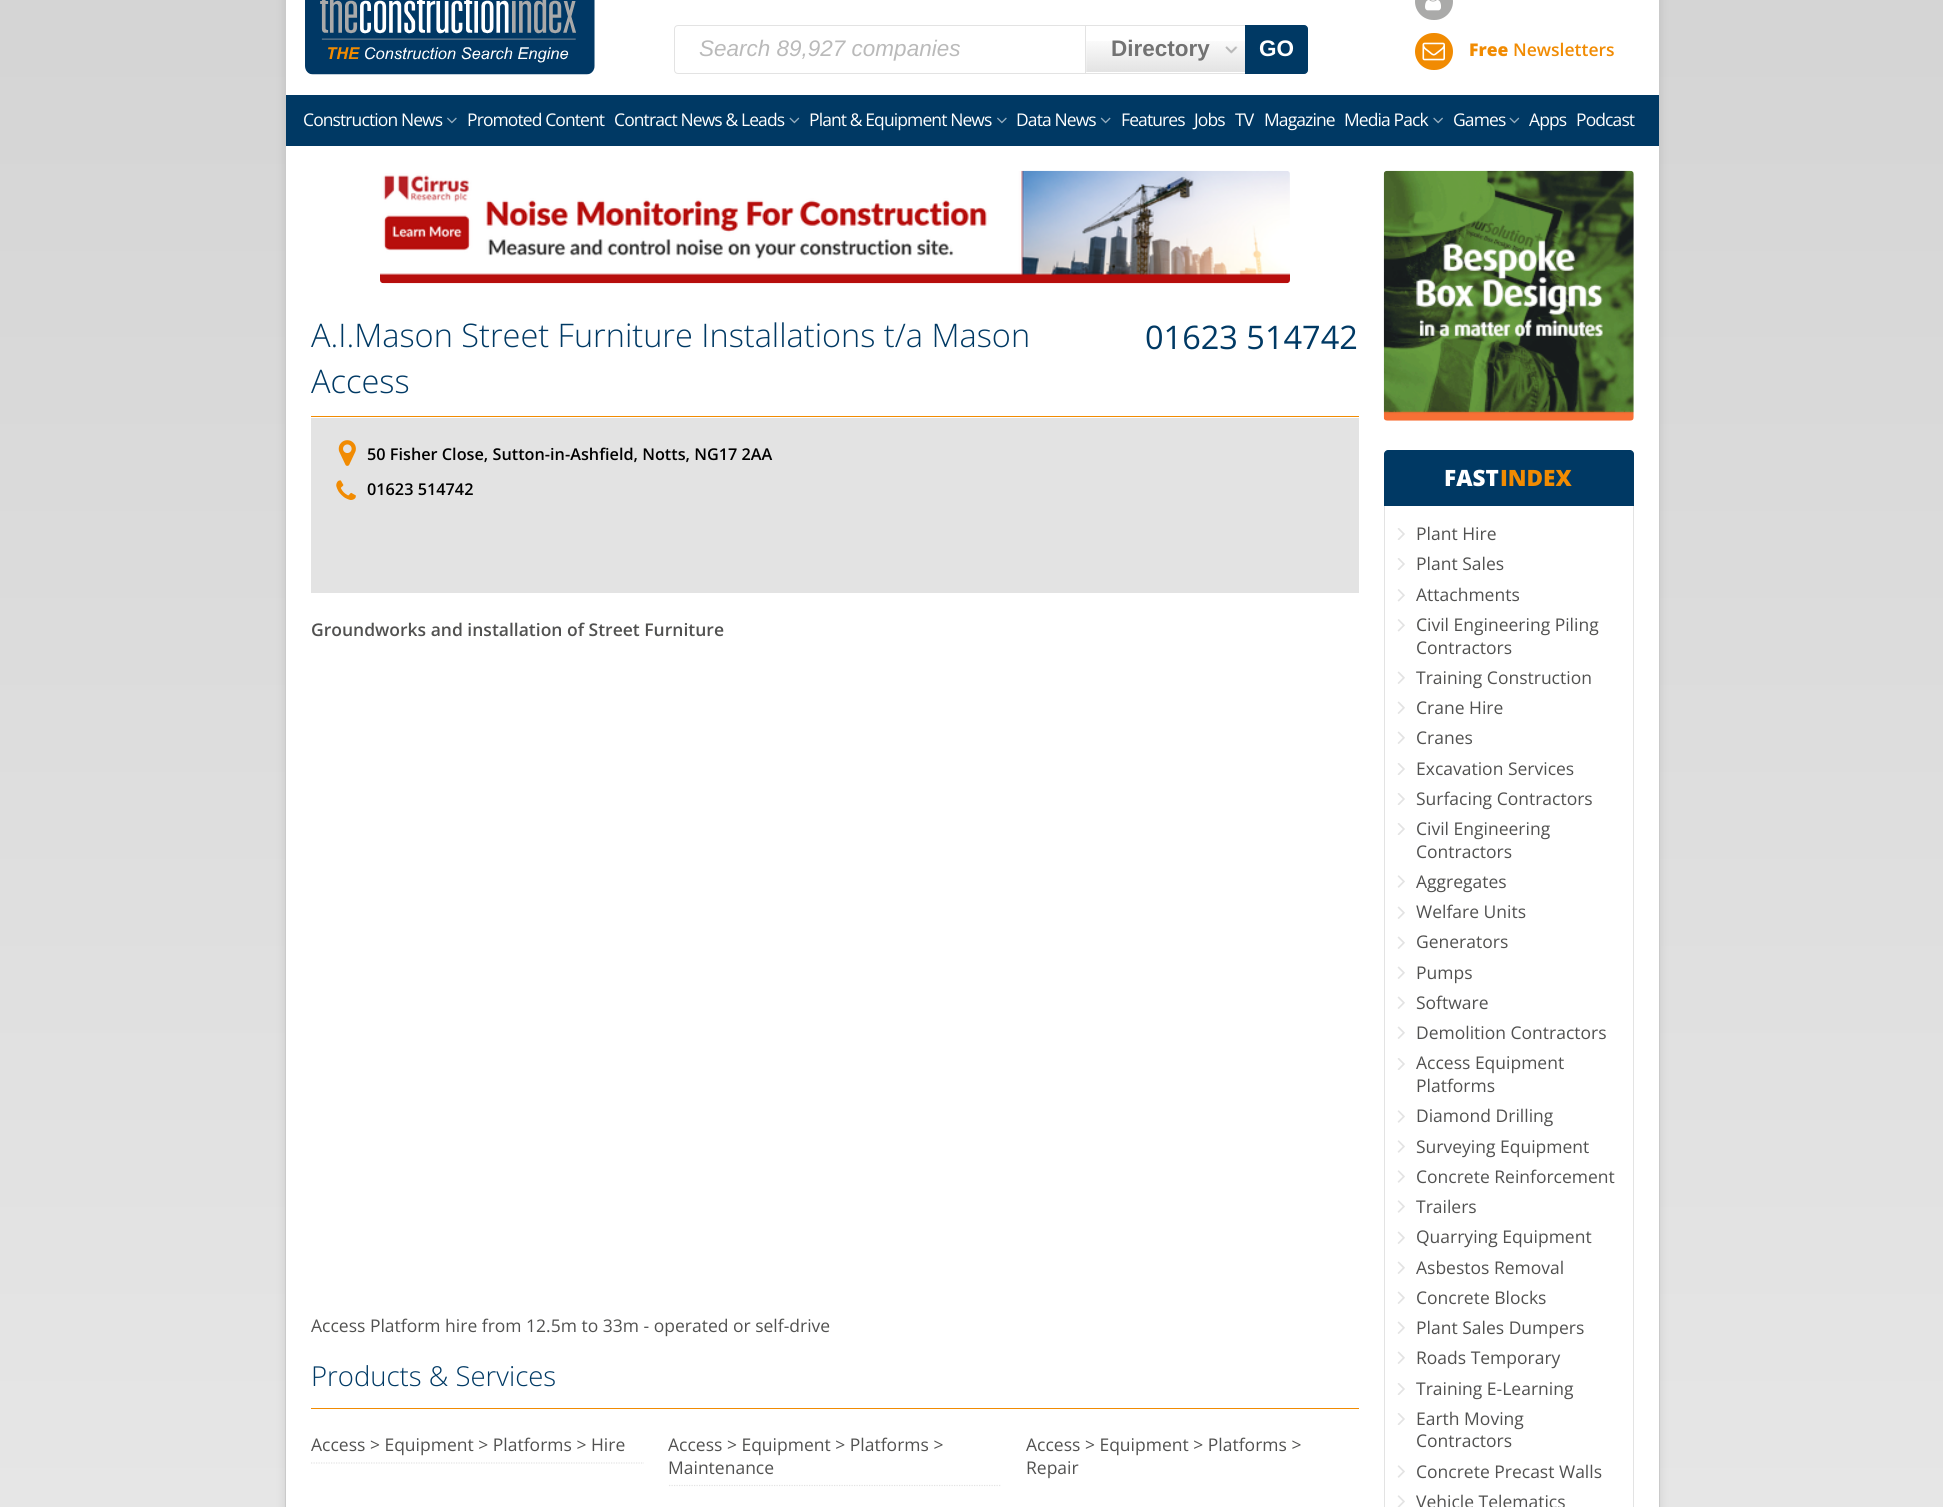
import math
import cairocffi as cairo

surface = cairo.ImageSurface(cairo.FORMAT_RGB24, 1943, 1507)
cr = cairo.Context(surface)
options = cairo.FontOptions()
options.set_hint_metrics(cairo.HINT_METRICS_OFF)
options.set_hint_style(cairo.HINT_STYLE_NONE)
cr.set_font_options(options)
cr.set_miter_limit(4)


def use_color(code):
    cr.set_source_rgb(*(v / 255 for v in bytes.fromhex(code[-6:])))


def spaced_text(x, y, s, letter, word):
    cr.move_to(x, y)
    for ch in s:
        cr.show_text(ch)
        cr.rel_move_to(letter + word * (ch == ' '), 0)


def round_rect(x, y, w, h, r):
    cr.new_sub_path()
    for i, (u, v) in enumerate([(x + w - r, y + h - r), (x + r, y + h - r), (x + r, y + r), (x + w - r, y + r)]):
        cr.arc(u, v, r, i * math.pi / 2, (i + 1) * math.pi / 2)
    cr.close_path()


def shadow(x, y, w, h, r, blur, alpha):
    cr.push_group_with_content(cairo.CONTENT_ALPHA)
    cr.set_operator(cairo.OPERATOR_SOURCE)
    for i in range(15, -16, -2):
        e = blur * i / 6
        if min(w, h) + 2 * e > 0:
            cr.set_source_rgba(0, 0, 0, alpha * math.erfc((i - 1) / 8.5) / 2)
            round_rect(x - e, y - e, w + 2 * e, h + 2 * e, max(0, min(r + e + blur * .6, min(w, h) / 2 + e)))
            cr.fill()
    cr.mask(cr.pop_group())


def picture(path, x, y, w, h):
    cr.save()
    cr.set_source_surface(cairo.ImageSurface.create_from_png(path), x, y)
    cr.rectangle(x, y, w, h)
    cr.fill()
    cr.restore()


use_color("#ffffff")
cr.paint()
gradient = cairo.LinearGradient(972, -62, 972, 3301)
gradient.add_color_stop_rgba(0, 0.831, 0.831, 0.831, 1)
gradient.add_color_stop_rgba(0.6, 0.922, 0.922, 0.922, 1)
cr.set_source(gradient)
cr.rectangle(0, 0, 1943, 1507)
cr.fill()
use_color("#000000")
shadow(285, -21, 1375, 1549, 6, 5, 0.1)
use_color("#ffffff")
cr.rectangle(286, 0, 1373, 1507)
cr.fill()
use_color("#cacaca")
cr.set_fill_rule(cairo.FILL_RULE_EVEN_ODD)
cr.new_path()
cr.move_to(285, -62)
cr.line_to(1660, -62)
cr.line_to(1660, 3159)
cr.curve_to(1660, 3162, 1657, 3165, 1654, 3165)
cr.line_to(291, 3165)
cr.curve_to(288, 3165, 285, 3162, 285, 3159)
cr.close_path()
cr.move_to(286, -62)
cr.line_to(1659, -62)
cr.line_to(1659, 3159)
cr.curve_to(1659, 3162, 1657, 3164, 1654, 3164)
cr.line_to(291, 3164)
cr.curve_to(288, 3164, 286, 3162, 286, 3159)
cr.close_path()
cr.fill()
picture("img1.png", 305, 0, 290, 75)
cr.new_path()
cr.move_to(678, 25.5)
cr.line_to(1085.5, 25.5)
cr.line_to(1085.5, 73.5)
cr.line_to(678, 73.5)
cr.curve_to(676, 73.5, 674.5, 72, 674.5, 70)
cr.line_to(674.5, 29)
cr.curve_to(674.5, 27, 676, 25.5, 678, 25.5)
cr.close_path()
use_color("#e3e3e3")
cr.set_line_width(1)
cr.stroke()
cr.select_font_face("Liberation Sans", cairo.FONT_SLANT_ITALIC)
cr.set_font_size(22.5)
use_color("#bababa")
cr.move_to(699, 56)
cr.show_text("Search 89,927 companies")
picture("img2.png", 1086, 41, 159, 31)
use_color("#e3e3e3")
cr.rectangle(1086, 25, 159, 1)
cr.fill()
cr.rectangle(1086, 73, 159, 1)
cr.fill()
cr.select_font_face("Liberation Sans", cairo.FONT_SLANT_NORMAL, cairo.FONT_WEIGHT_BOLD)
use_color("#727272")
cr.move_to(1111, 56)
cr.show_text("Directory")
use_color("#003964")
cr.new_path()
cr.move_to(1245.5, 25.5)
cr.line_to(1304, 25.5)
cr.curve_to(1306, 25.5, 1307.5, 27, 1307.5, 29)
cr.line_to(1307.5, 70)
cr.curve_to(1307.5, 72, 1306, 73.5, 1304, 73.5)
cr.line_to(1245.5, 73.5)
cr.close_path()
cr.fill_preserve()
cr.stroke()
use_color("#ffffff")
cr.move_to(1259, 56)
cr.show_text("GO")
use_color("#aaaaa9")
round_rect(1415, -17, 38, 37, 18.5)
cr.fill()
picture("img3.png", 1425, 0, 16, 11)
use_color("#f18b02")
round_rect(1415, 33, 38, 37, 18.5)
cr.fill()
picture("img4.png", 1422, 42, 23, 19)
cr.select_font_face("Open Sans ExtraBold")
cr.set_font_size(17.5)
cr.move_to(1469, 56)
cr.show_text("Free")
cr.select_font_face("Open Sans SemiBold")
cr.move_to(1513, 56)
cr.show_text("Newsletters")
use_color("#003964")
cr.rectangle(286, 95, 1373, 51)
cr.fill()
cr.select_font_face("Open Sans")
use_color("#ffffff")
spaced_text(303, 126, "Construction News", -0.9, 0)
picture("img5.png", 447, 117, 10, 7)
spaced_text(467, 126, "Promoted Content", -0.9, 0)
spaced_text(614, 126, "Contract News & Leads", -0.9, 0)
picture("img6.png", 789, 117, 11, 7)
spaced_text(809, 126, "Plant & Equipment News", -0.9, 0)
picture("img5.png", 997, 117, 10, 7)
spaced_text(1016, 126, "Data News", -0.9, 0)
picture("img7.png", 1100, 117, 11, 7)
spaced_text(1121, 126, "Features", -0.9, 0)
spaced_text(1194, 126, "Jobs", -0.9, 0)
spaced_text(1235, 126, "TV", -0.9, 0)
spaced_text(1264, 126, "Magazine", -0.9, 0)
spaced_text(1344, 126, "Media Pack", -0.9, 0)
picture("img8.png", 1433, 117, 10, 7)
spaced_text(1453, 126, "Games", -0.9, 0)
picture("img6.png", 1509, 117, 11, 7)
spaced_text(1529, 126, "Apps", -0.9, 0)
spaced_text(1576, 126, "Podcast", -0.9, 0)
picture("img9.png", 380, 170, 910, 114)
use_color("#f18b02")
cr.rectangle(311, 416, 1048, 1)
cr.fill()
cr.select_font_face("Open Sans Light")
cr.set_font_size(32.5)
use_color("#003964")
cr.move_to(311, 347)
cr.show_text("A.I.Mason Street Furniture Installations t/a Mason")
cr.move_to(311, 393)
cr.show_text("Access")
cr.select_font_face("Open Sans")
cr.move_to(1145, 349)
cr.show_text("01623 514742")
use_color("#e3e3e3")
cr.rectangle(311, 418, 1048, 175)
cr.fill()
picture("img10.png", 338, 440, 18, 26)
cr.select_font_face("Open Sans SemiBold")
cr.set_font_size(16.25)
use_color("#000000")
cr.move_to(367, 460)
cr.show_text("50 Fisher Close, Sutton-in-Ashfield, Notts, NG17 2AA")
picture("img11.png", 336, 480, 20, 20)
cr.move_to(367, 495)
cr.show_text("01623 514742")
cr.set_font_size(17.5)
use_color("#515150")
cr.move_to(311, 636)
cr.show_text("Groundworks and installation of Street Furniture")
cr.select_font_face("Open Sans")
cr.move_to(311, 1332)
cr.show_text("Access Platform hire from 12.5m to 33m - operated or self-drive")
use_color("#f18b02")
cr.rectangle(311, 1408, 1048, 1)
cr.fill()
cr.select_font_face("Open Sans Light")
cr.set_font_size(27.5)
use_color("#003964")
cr.move_to(311, 1386)
cr.show_text("Products & Services")
cr.new_path()
cr.move_to(311, 1463)
cr.line_to(644, 1463)
use_color("#e3e3e3")
cr.set_line_width(1.2)
cr.set_dash([1.25, 1.25])
cr.stroke()
cr.select_font_face("Open Sans")
cr.set_font_size(17.5)
use_color("#515150")
cr.move_to(311, 1451)
cr.show_text("Access > Equipment > Platforms > Hire")
cr.new_path()
cr.move_to(669, 1485.5)
cr.line_to(1001, 1485.5)
use_color("#e3e3e3")
cr.stroke()
use_color("#515150")
cr.move_to(668, 1451)
cr.show_text("Access > Equipment > Platforms >")
cr.move_to(668, 1474)
cr.show_text("Maintenance")
cr.move_to(1026, 1451)
cr.show_text("Access > Equipment > Platforms >")
cr.move_to(1026, 1474)
cr.show_text("Repair")
picture("img12.png", 1383, 170, 251, 251)
round_rect(1384.5, 450.5, 249, 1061, 3.5)
use_color("#e3e3e3")
cr.set_line_width(1)
cr.set_dash([])
cr.stroke()
use_color("#003964")
cr.new_path()
cr.move_to(1388, 450)
cr.line_to(1630, 450)
cr.curve_to(1632, 450, 1634, 452, 1634, 454)
cr.line_to(1634, 506)
cr.line_to(1384, 506)
cr.line_to(1384, 454)
cr.curve_to(1384, 452, 1386, 450, 1388, 450)
cr.close_path()
cr.fill()
cr.select_font_face("Open Sans ExtraBold")
cr.set_font_size(22.5)
use_color("#ffffff")
cr.move_to(1444, 486)
cr.show_text("FAST")
use_color("#f18b02")
cr.move_to(1500, 486)
cr.show_text("INDEX")
picture("img13.png", 1397, 528, 8, 12)
cr.select_font_face("Open Sans")
cr.set_font_size(17.5)
use_color("#515150")
cr.move_to(1416, 540)
cr.show_text("Plant Hire")
picture("img13.png", 1397, 558, 8, 12)
cr.move_to(1416, 570)
cr.show_text("Plant Sales")
picture("img14.png", 1397, 589, 8, 13)
cr.move_to(1416, 601)
cr.show_text("Attachments")
picture("img14.png", 1397, 619, 8, 13)
cr.move_to(1416, 631)
cr.show_text("Civil Engineering Piling")
cr.move_to(1416, 654)
cr.show_text("Contractors")
picture("img15.png", 1397, 671, 8, 13)
cr.move_to(1416, 684)
cr.show_text("Training Construction")
picture("img15.png", 1397, 701, 8, 13)
cr.move_to(1416, 714)
cr.show_text("Crane Hire")
picture("img15.png", 1397, 731, 8, 13)
cr.move_to(1416, 744)
cr.show_text("Cranes")
picture("img13.png", 1397, 763, 8, 12)
cr.move_to(1416, 775)
cr.show_text("Excavation Services")
picture("img13.png", 1397, 793, 8, 12)
cr.move_to(1416, 805)
cr.show_text("Surfacing Contractors")
picture("img13.png", 1397, 823, 8, 12)
cr.move_to(1416, 835)
cr.show_text("Civil Engineering")
cr.move_to(1416, 858)
cr.show_text("Contractors")
picture("img16.png", 1397, 875, 8, 13)
cr.move_to(1416, 888)
cr.show_text("Aggregates")
picture("img15.png", 1397, 906, 8, 13)
cr.move_to(1416, 918)
cr.show_text("Welfare Units")
picture("img15.png", 1397, 936, 8, 13)
cr.move_to(1416, 948)
cr.show_text("Generators")
picture("img15.png", 1397, 966, 8, 13)
cr.move_to(1416, 979)
cr.show_text("Pumps")
picture("img15.png", 1397, 996, 8, 13)
cr.move_to(1416, 1009)
cr.show_text("Software")
picture("img15.png", 1397, 1026, 8, 13)
cr.move_to(1416, 1039)
cr.show_text("Demolition Contractors")
picture("img13.png", 1397, 1058, 8, 12)
cr.move_to(1416, 1069)
cr.show_text("Access Equipment")
cr.move_to(1416, 1092)
cr.show_text("Platforms")
picture("img16.png", 1397, 1110, 8, 13)
cr.move_to(1416, 1122)
cr.show_text("Diamond Drilling")
picture("img16.png", 1397, 1140, 8, 13)
cr.move_to(1416, 1153)
cr.show_text("Surveying Equipment")
picture("img16.png", 1397, 1170, 8, 13)
cr.move_to(1416, 1183)
cr.show_text("Concrete Reinforcement")
picture("img16.png", 1397, 1200, 8, 13)
cr.move_to(1416, 1213)
cr.show_text("Trailers")
picture("img15.png", 1397, 1231, 8, 13)
cr.move_to(1416, 1243)
cr.show_text("Quarrying Equipment")
picture("img15.png", 1397, 1261, 8, 13)
cr.move_to(1416, 1274)
cr.show_text("Asbestos Removal")
picture("img15.png", 1397, 1291, 8, 13)
cr.move_to(1416, 1304)
cr.show_text("Concrete Blocks")
picture("img15.png", 1397, 1321, 8, 13)
cr.move_to(1416, 1334)
cr.show_text("Plant Sales Dumpers")
picture("img15.png", 1397, 1351, 8, 13)
cr.move_to(1416, 1364)
cr.show_text("Roads Temporary")
picture("img13.png", 1397, 1383, 8, 12)
cr.move_to(1416, 1395)
cr.show_text("Training E-Learning")
picture("img13.png", 1397, 1413, 8, 12)
cr.move_to(1416, 1425)
cr.show_text("Earth Moving")
cr.move_to(1416, 1447)
cr.show_text("Contractors")
picture("img16.png", 1397, 1465, 8, 13)
cr.move_to(1416, 1478)
cr.show_text("Concrete Precast Walls")
picture("img17.png", 1397, 1495, 8, 12)
cr.move_to(1416, 1508)
cr.show_text("Vehicle Telematics")
surface.write_to_png("result.png")
